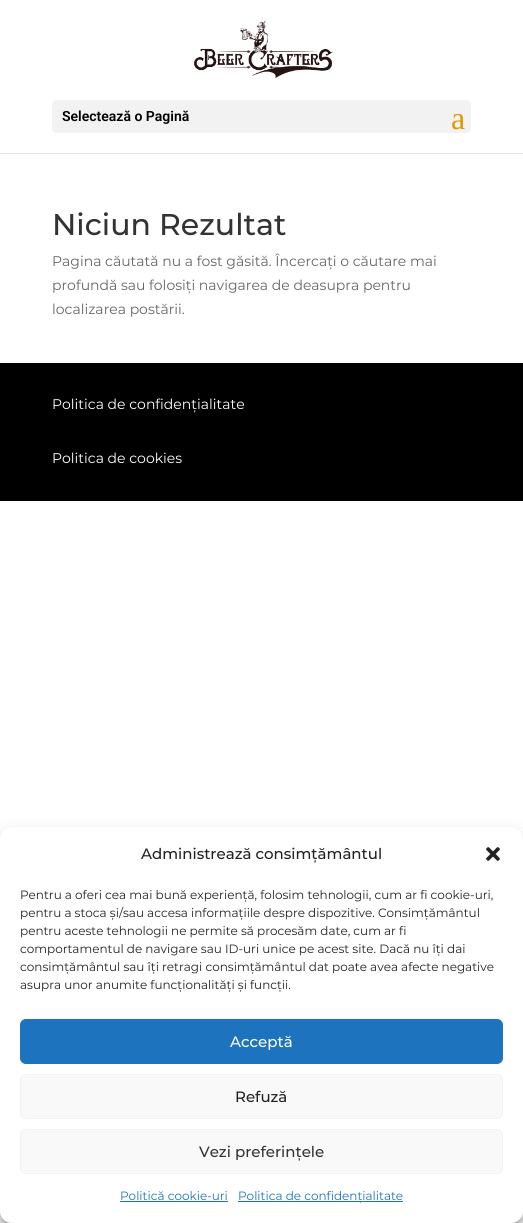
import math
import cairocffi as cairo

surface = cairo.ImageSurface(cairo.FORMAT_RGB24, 523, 1223)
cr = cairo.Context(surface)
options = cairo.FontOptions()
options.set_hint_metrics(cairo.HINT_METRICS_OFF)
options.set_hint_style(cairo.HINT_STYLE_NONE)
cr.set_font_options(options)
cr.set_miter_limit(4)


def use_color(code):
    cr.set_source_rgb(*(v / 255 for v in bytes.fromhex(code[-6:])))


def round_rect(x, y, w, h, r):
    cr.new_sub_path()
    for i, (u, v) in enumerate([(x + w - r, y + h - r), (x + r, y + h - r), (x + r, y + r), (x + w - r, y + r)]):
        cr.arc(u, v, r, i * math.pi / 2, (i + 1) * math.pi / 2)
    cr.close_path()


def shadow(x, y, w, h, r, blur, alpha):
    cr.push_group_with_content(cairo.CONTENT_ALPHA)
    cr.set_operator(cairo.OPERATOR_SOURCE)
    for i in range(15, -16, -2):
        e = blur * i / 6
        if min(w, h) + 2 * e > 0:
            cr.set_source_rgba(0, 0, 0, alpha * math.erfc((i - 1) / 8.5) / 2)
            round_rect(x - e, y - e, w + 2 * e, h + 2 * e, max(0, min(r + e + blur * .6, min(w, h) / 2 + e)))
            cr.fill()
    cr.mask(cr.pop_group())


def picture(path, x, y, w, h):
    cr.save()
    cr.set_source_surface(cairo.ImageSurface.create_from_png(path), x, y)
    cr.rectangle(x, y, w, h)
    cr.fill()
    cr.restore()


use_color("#ffffff")
cr.paint()
use_color("#e6e6e6")
cr.rectangle(0, 153, 523, 1)
cr.fill()
picture("img1.png", 194, 20, 139, 59)
use_color("#f2f2f2")
round_rect(52, 100, 419, 33, 5)
cr.fill()
cr.select_font_face("Roboto SemiBold")
cr.set_font_size(14)
use_color("#000000")
cr.move_to(62, 121)
cr.show_text("Selectează o Pagină")
cr.select_font_face("Liberation Serif")
cr.set_font_size(32)
use_color("#e09900")
cr.move_to(451, 129)
cr.show_text("a")
cr.select_font_face("Montserrat Medium")
cr.set_font_size(30)
use_color("#333333")
cr.move_to(52, 235)
cr.show_text("Niciun Rezultat")
cr.select_font_face("Montserrat")
cr.set_font_size(14)
use_color("#666666")
cr.move_to(52, 266)
cr.show_text("Pagina căutată nu a fost găsită. Încercați o căutare mai")
cr.move_to(52, 290)
cr.show_text("profundă sau folosiți navigarea de deasupra pentru")
cr.move_to(52, 314)
cr.show_text("localizarea postării.")
use_color("#000000")
cr.rectangle(0, 363, 523, 138)
cr.fill()
use_color("#ffffff")
cr.move_to(52, 409)
cr.show_text("Politica de confidențialitate")
cr.move_to(52, 463)
cr.show_text("Politica de cookies")
use_color("#000000")
shadow(0, 833, 523, 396, 12, 3, 0.23)
shadow(0, 837, 523, 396, 12, 10, 0.19)
use_color("#ffffff")
round_rect(0, 827, 523, 396, 12)
cr.fill()
cr.select_font_face("Montserrat Medium")
cr.set_font_size(15)
use_color("#222222")
cr.move_to(141, 859)
cr.show_text("Administrează consimțământul")
picture("img2.png", 486, 847, 14, 14)
cr.select_font_face("Montserrat")
cr.set_font_size(12)
cr.move_to(20, 899)
cr.show_text("Pentru a oferi cea mai bună experiență, folosim tehnologii, cum ar fi cookie-uri,")
cr.move_to(20, 917)
cr.show_text("pentru a stoca și/sau accesa informațiile despre dispozitive. Consimțământul")
cr.move_to(20, 935)
cr.show_text("pentru aceste tehnologii ne permite să procesăm date, cum ar fi")
cr.move_to(20, 953)
cr.show_text("comportamentul de navigare sau ID-uri unice pe acest site. Dacă nu îți dai")
cr.move_to(20, 971)
cr.show_text("consimțământul sau îți retragi consimțământul dat poate avea afecte negative")
cr.move_to(20, 989)
cr.show_text("asupra unor anumite funcționalități și funcții.")
use_color("#1e73be")
round_rect(20.5, 1019.5, 482, 44, 5.5)
cr.fill_preserve()
cr.set_line_width(1)
cr.stroke()
cr.select_font_face("Montserrat Medium")
cr.set_font_size(15)
use_color("#ffffff")
cr.move_to(230, 1047)
cr.show_text("Acceptă")
use_color("#f9f9f9")
round_rect(20.5, 1074.5, 482, 44, 5.5)
cr.fill_preserve()
use_color("#f2f2f2")
cr.stroke()
use_color("#222222")
cr.move_to(235, 1102)
cr.show_text("Refuză")
use_color("#f9f9f9")
round_rect(20.5, 1129.5, 482, 44, 5.5)
cr.fill_preserve()
use_color("#f2f2f2")
cr.stroke()
use_color("#333333")
cr.move_to(199, 1157)
cr.show_text("Vezi preferințele")
cr.select_font_face("Montserrat")
cr.set_font_size(12)
use_color("#1e73be")
cr.move_to(120, 1200)
cr.show_text("Politică cookie-uri")
cr.rectangle(120, 1201, 108, 1)
cr.fill()
cr.rectangle(238, 1201, 165, 1)
cr.fill()
cr.move_to(238, 1200)
cr.show_text("Politica de confidențialitate")
surface.write_to_png("result.png")
